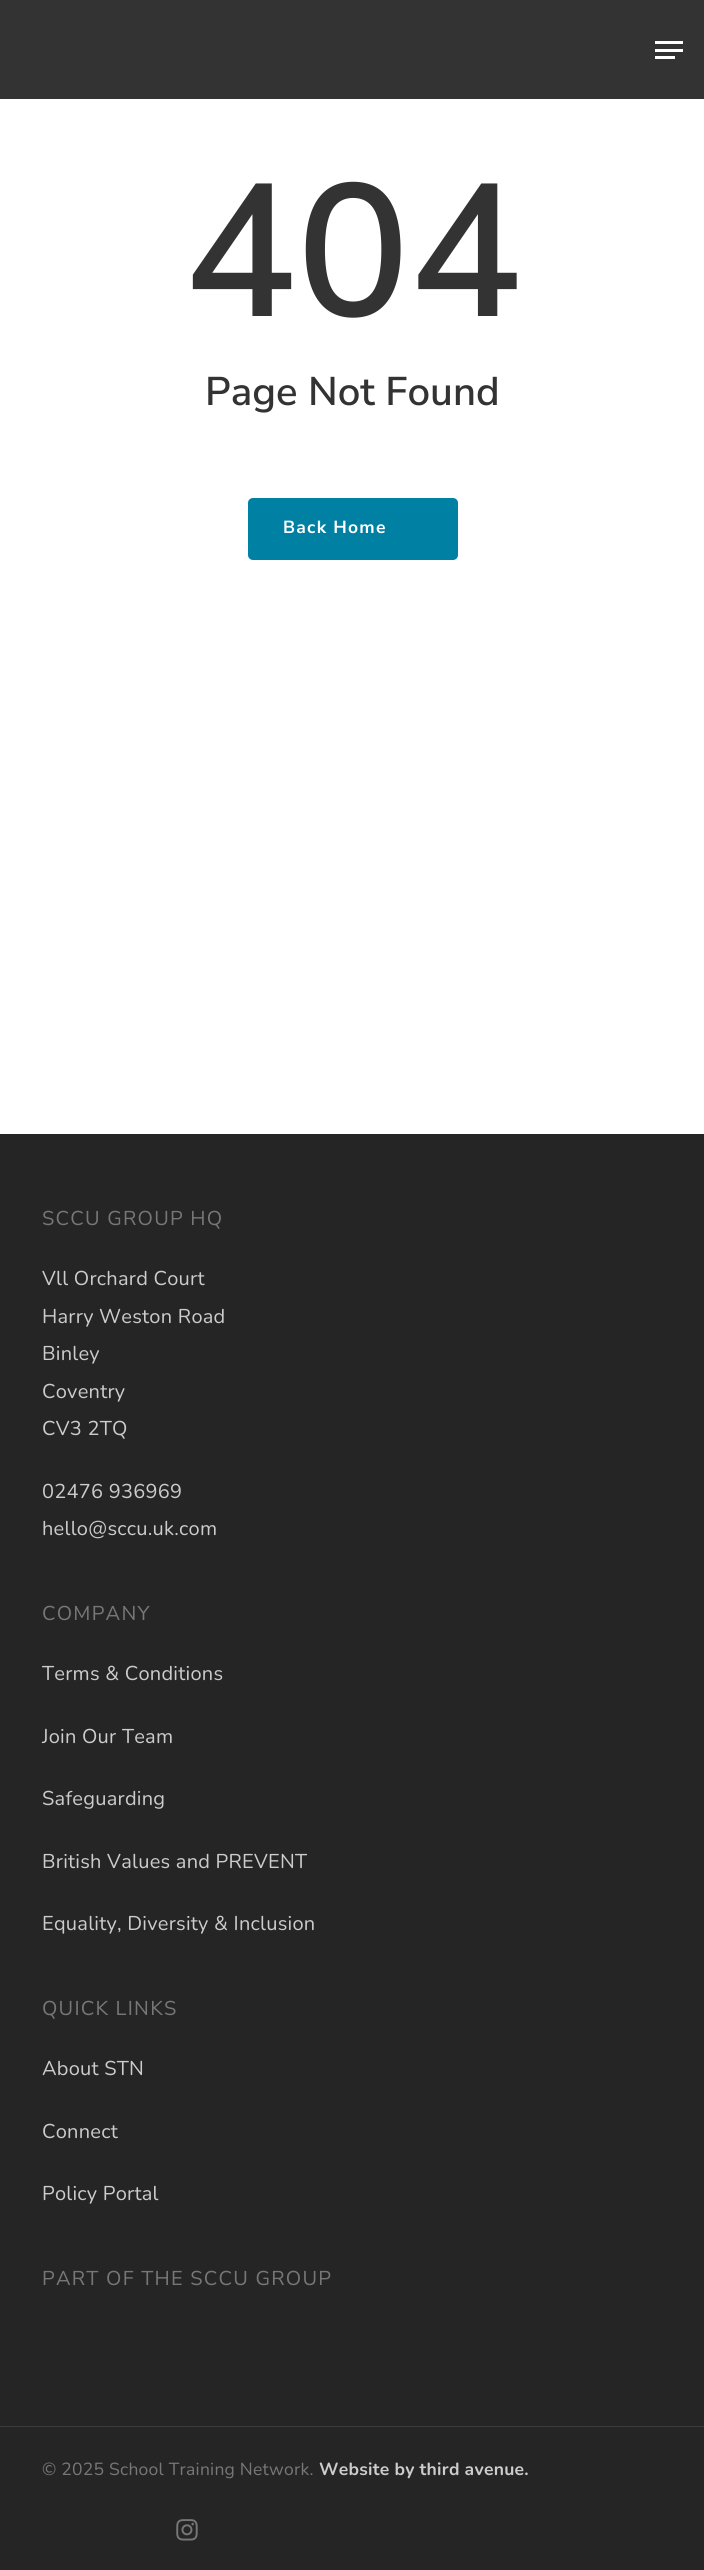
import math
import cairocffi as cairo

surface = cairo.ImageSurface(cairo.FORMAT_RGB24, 704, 2570)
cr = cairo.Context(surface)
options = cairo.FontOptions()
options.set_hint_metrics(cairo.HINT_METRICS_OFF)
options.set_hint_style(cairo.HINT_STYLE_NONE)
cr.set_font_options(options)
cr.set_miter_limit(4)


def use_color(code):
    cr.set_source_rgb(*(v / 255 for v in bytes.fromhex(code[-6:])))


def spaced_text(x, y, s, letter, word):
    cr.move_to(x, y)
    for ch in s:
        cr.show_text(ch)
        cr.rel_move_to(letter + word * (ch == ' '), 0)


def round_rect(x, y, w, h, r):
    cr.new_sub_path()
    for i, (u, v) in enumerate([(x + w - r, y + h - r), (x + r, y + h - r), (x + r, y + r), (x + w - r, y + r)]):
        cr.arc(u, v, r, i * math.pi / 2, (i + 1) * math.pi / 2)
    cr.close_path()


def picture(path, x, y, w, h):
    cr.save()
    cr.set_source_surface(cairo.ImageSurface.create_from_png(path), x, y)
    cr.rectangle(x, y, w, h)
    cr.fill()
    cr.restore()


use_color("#ffffff")
cr.paint()
use_color("#333333")
cr.rectangle(0, 0, 704, 99)
cr.fill()
use_color("#ffffff")
cr.rectangle(655, 41, 28, 3)
cr.fill()
cr.rectangle(655, 56, 20, 3)
cr.fill()
cr.rectangle(655, 49, 28, 3)
cr.fill()
cr.select_font_face("Nunito Sans SemiBold")
cr.set_font_size(188)
use_color("#333333")
cr.move_to(184, 316)
cr.show_text("404")
cr.set_font_size(40)
cr.move_to(205, 405)
cr.show_text("Page Not Found")
use_color("#0081a4")
round_rect(248, 498, 210, 62, 5)
cr.fill()
cr.select_font_face("Nunito Sans", cairo.FONT_SLANT_NORMAL, cairo.FONT_WEIGHT_BOLD)
cr.set_font_size(17.5)
use_color("#ffffff")
spaced_text(283, 533, "Back Home", 1.25, 0)
use_color("#252525")
cr.rectangle(0, 1134, 704, 1436)
cr.fill()
cr.select_font_face("Nunito Sans")
cr.set_font_size(20)
use_color("#777777")
spaced_text(42, 1225, "SCCU GROUP HQ", 1.25, 0)
cr.select_font_face("Nunito")
use_color("#cccccc")
spaced_text(42, 1285, "Vll Orchard Court", 0.25, 0)
spaced_text(42, 1323, "Harry Weston Road", 0.25, 0)
spaced_text(42, 1360, "Binley", 0.25, 0)
spaced_text(42, 1398, "Coventry", 0.25, 0)
spaced_text(42, 1435, "CV3 2TQ", 0.25, 0)
spaced_text(42, 1498, "02476 936969", 0.25, 0)
spaced_text(42, 1535, "hello@sccu.uk.com", 0.25, 0)
cr.select_font_face("Nunito Sans")
use_color("#777777")
spaced_text(42, 1620, "COMPANY", 1.25, 0)
cr.select_font_face("Nunito")
use_color("#cccccc")
spaced_text(42, 1680, "Terms & Conditions", 0.25, 0)
spaced_text(42, 1743, "Join Our Team", 0.25, 0)
spaced_text(42, 1805, "Safeguarding", 0.25, 0)
spaced_text(42, 1868, "British Values and PREVENT", 0.25, 0)
spaced_text(42, 1930, "Equality, Diversity & Inclusion", 0.25, 0)
cr.select_font_face("Nunito Sans")
use_color("#777777")
spaced_text(42, 2015, "QUICK LINKS", 1.25, 0)
cr.select_font_face("Nunito")
use_color("#cccccc")
spaced_text(42, 2075, "About STN", 0.25, 0)
spaced_text(42, 2138, "Connect", 0.25, 0)
spaced_text(42, 2200, "Policy Portal", 0.25, 0)
cr.select_font_face("Nunito Sans")
use_color("#777777")
spaced_text(42, 2285, "PART OF THE SCCU GROUP", 1.25, 0)
use_color("#3b3b3b")
cr.rectangle(0, 2426, 704, 1)
cr.fill()
cr.select_font_face("Nunito")
cr.set_font_size(17.5)
use_color("#777777")
spaced_text(42, 2475, "© 2025 School Training Network.", 0.25, 0)
cr.select_font_face("Nunito", cairo.FONT_SLANT_NORMAL, cairo.FONT_WEIGHT_BOLD)
use_color("#cccccc")
spaced_text(319, 2475, "Website by third avenue.", 0.25, 0)
picture("img1.png", 176, 2519, 22, 22)
surface.write_to_png("result.png")
